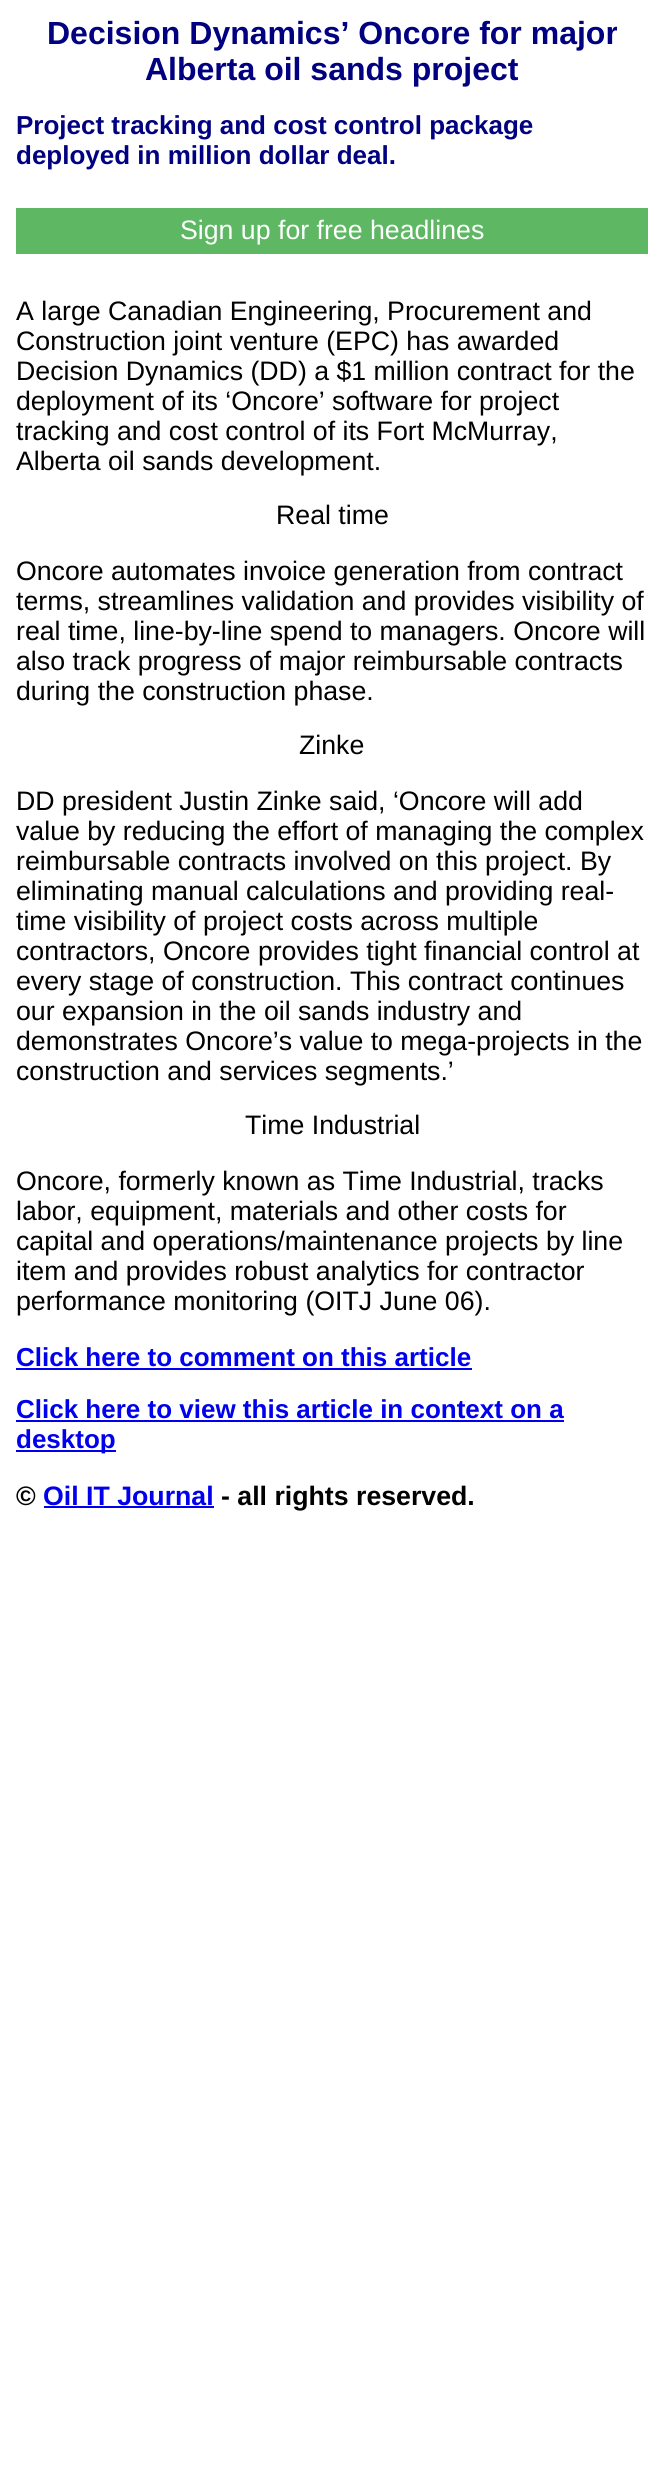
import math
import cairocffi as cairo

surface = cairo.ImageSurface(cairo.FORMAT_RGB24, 663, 2486)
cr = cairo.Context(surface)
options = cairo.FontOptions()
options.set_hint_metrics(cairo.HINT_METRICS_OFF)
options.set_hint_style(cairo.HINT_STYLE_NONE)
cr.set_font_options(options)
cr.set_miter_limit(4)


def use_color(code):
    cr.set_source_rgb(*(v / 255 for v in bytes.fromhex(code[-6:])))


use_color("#ffffff")
cr.paint()
cr.select_font_face("Liberation Sans", cairo.FONT_SLANT_NORMAL, cairo.FONT_WEIGHT_BOLD)
cr.set_font_size(32)
use_color("#000080")
cr.move_to(47, 44)
cr.show_text("Decision Dynamics’ Oncore for major")
cr.move_to(145, 80)
cr.show_text("Alberta oil sands project")
cr.set_font_size(26)
cr.move_to(16, 134)
cr.show_text("Project tracking and cost control package")
cr.move_to(16, 164)
cr.show_text("deployed in million dollar deal.")
use_color("#5eb762")
cr.rectangle(16, 208, 632, 46)
cr.fill()
cr.select_font_face("Liberation Sans")
cr.set_font_size(26.7)
use_color("#ffffff")
cr.move_to(180, 239)
cr.show_text("Sign up for free headlines")
use_color("#000000")
cr.move_to(16, 320)
cr.show_text("A large Canadian Engineering, Procurement and")
cr.move_to(16, 350)
cr.show_text("Construction joint venture (EPC) has awarded")
cr.move_to(16, 380)
cr.show_text("Decision Dynamics (DD) a $1 million contract for the")
cr.move_to(16, 410)
cr.show_text("deployment of its ‘Oncore’ software for project")
cr.move_to(16, 440)
cr.show_text("tracking and cost control of its Fort McMurray,")
cr.move_to(16, 470)
cr.show_text("Alberta oil sands development.")
cr.move_to(276, 524)
cr.show_text("Real time")
cr.move_to(16, 580)
cr.show_text("Oncore automates invoice generation from contract")
cr.move_to(16, 610)
cr.show_text("terms, streamlines validation and provides visibility of")
cr.move_to(16, 640)
cr.show_text("real time, line-by-line spend to managers. Oncore will")
cr.move_to(16, 670)
cr.show_text("also track progress of major reimbursable contracts")
cr.move_to(16, 700)
cr.show_text("during the construction phase.")
cr.move_to(299, 754)
cr.show_text("Zinke")
cr.move_to(16, 810)
cr.show_text("DD president Justin Zinke said, ‘Oncore will add")
cr.move_to(16, 840)
cr.show_text("value by reducing the effort of managing the complex")
cr.move_to(16, 870)
cr.show_text("reimbursable contracts involved on this project. By")
cr.move_to(16, 900)
cr.show_text("eliminating manual calculations and providing real-")
cr.move_to(16, 930)
cr.show_text("time visibility of project costs across multiple")
cr.move_to(16, 960)
cr.show_text("contractors, Oncore provides tight financial control at")
cr.move_to(16, 990)
cr.show_text("every stage of construction. This contract continues")
cr.move_to(16, 1020)
cr.show_text("our expansion in the oil sands industry and")
cr.move_to(16, 1050)
cr.show_text("demonstrates Oncore’s value to mega-projects in the")
cr.move_to(16, 1080)
cr.show_text("construction and services segments.’")
cr.move_to(245, 1134)
cr.show_text("Time Industrial")
cr.move_to(16, 1190)
cr.show_text("Oncore, formerly known as Time Industrial, tracks")
cr.move_to(16, 1220)
cr.show_text("labor, equipment, materials and other costs for")
cr.move_to(16, 1250)
cr.show_text("capital and operations/maintenance projects by line")
cr.move_to(16, 1280)
cr.show_text("item and provides robust analytics for contractor")
cr.move_to(16, 1310)
cr.show_text("performance monitoring (OITJ June 06).")
cr.select_font_face("Liberation Sans", cairo.FONT_SLANT_NORMAL, cairo.FONT_WEIGHT_BOLD)
cr.set_font_size(26)
use_color("#0000ee")
cr.move_to(16, 1366)
cr.show_text("Click here to comment on this article")
cr.rectangle(16, 1368, 456, 2)
cr.fill()
cr.move_to(16, 1418)
cr.show_text("Click here to view this article in context on a")
cr.rectangle(16, 1420, 548, 2)
cr.fill()
cr.rectangle(16, 1450, 100, 2)
cr.fill()
cr.move_to(16, 1448)
cr.show_text("desktop")
cr.set_font_size(26.7)
use_color("#000000")
cr.move_to(16, 1505)
cr.show_text("©")
use_color("#0000ee")
cr.move_to(43, 1505)
cr.show_text("Oil IT Journal")
cr.rectangle(44, 1506, 170, 2)
cr.fill()
use_color("#000000")
cr.move_to(221, 1505)
cr.show_text("- all rights reserved.")
surface.write_to_png("result.png")
